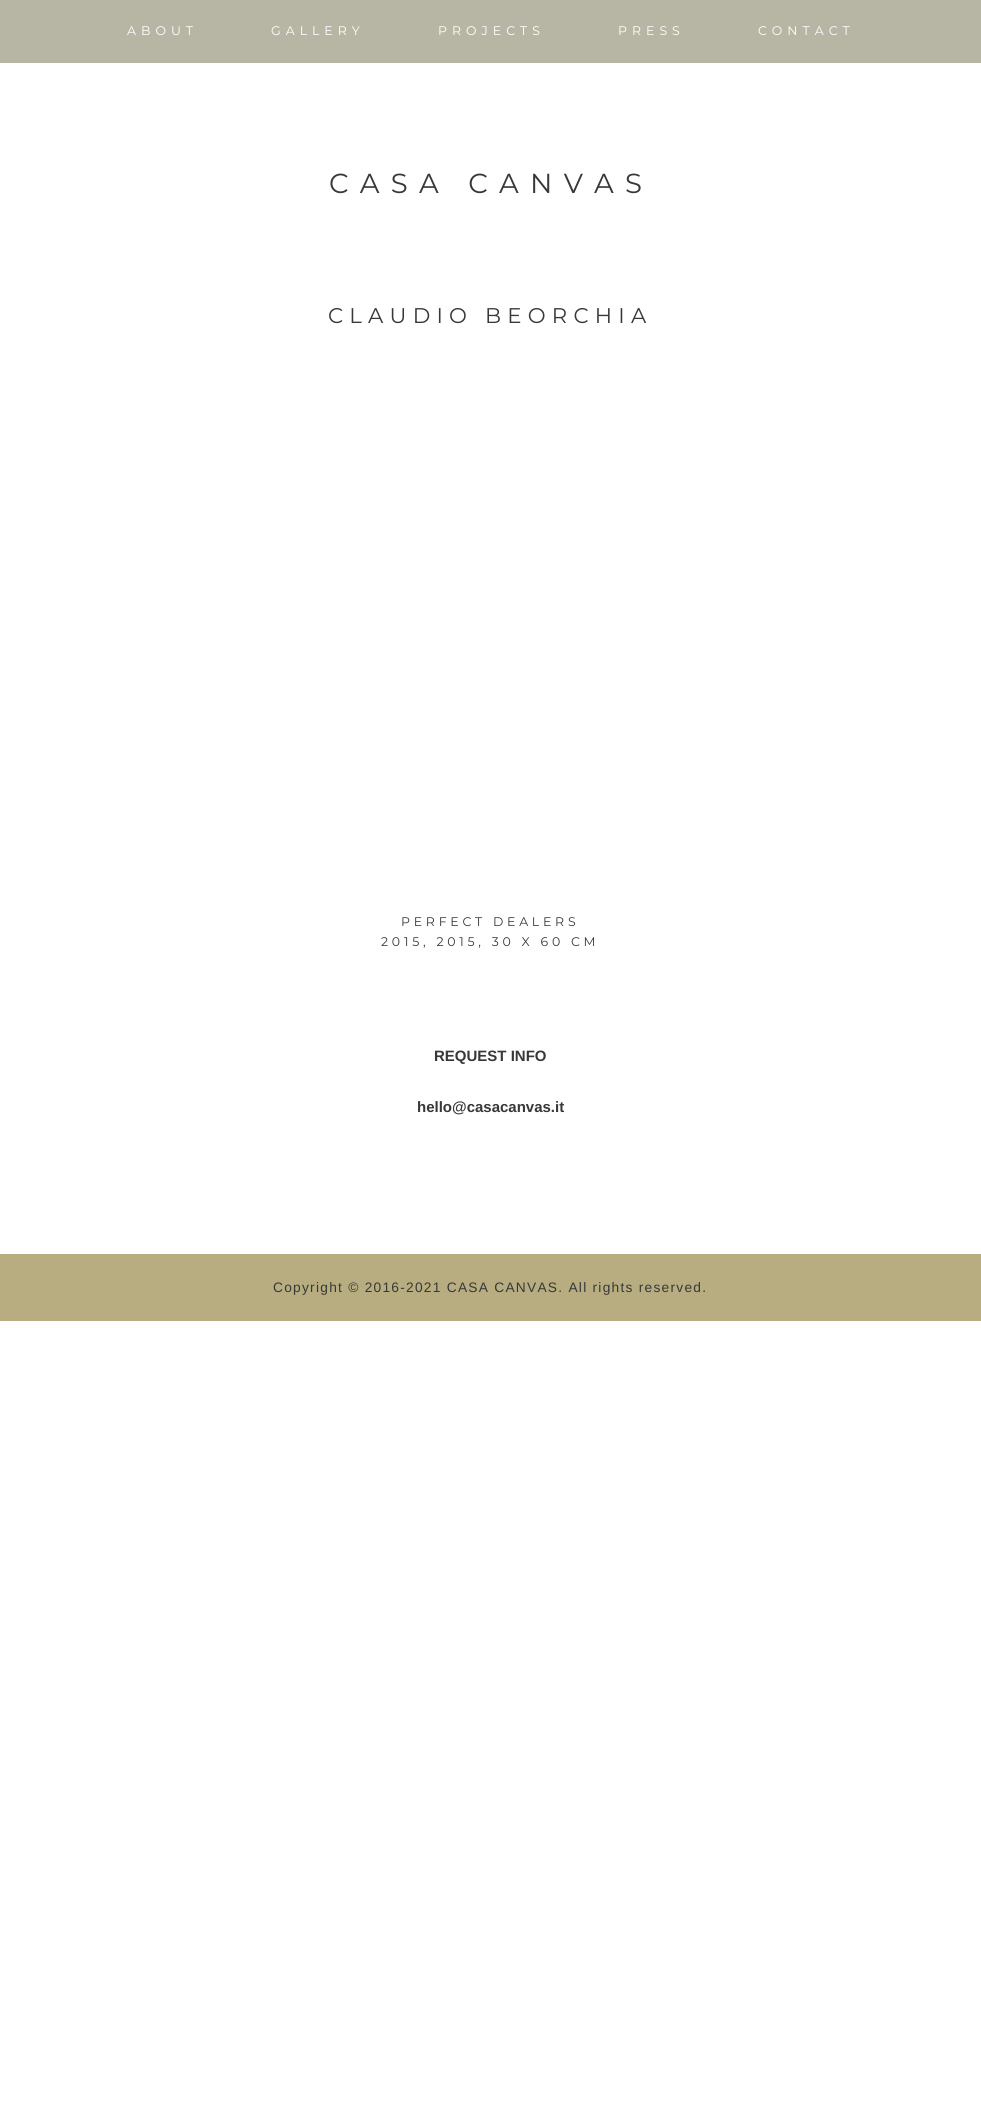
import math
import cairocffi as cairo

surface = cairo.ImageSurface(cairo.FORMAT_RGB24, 981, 2107)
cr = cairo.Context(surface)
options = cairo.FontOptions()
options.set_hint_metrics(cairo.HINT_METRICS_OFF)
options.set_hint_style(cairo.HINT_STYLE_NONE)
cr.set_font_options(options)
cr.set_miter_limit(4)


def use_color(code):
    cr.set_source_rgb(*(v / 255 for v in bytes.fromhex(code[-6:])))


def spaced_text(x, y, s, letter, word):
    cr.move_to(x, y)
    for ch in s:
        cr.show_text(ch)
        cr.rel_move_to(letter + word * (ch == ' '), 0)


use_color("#ffffff")
cr.paint()
use_color("#b7b6a4")
cr.rectangle(0, 0, 981, 63)
cr.fill()
cr.select_font_face("Montserrat")
cr.set_font_size(12.5)
use_color("#ffffff")
spaced_text(127, 35, "ABOUT", 5, 0)
spaced_text(271, 35, "GALLERY", 5, 0)
spaced_text(438, 35, "PROJECTS", 5, 0)
spaced_text(618, 35, "PRESS", 5, 0)
spaced_text(758, 35, "CONTACT", 5, 0)
cr.set_font_size(27.5)
use_color("#383838")
spaced_text(329, 193, "CASA CANVAS", 11.25, 0)
cr.set_font_size(21.25)
spaced_text(328, 323, "CLAUDIO BEORCHIA", 6.25, 0)
cr.set_font_size(12.5)
spaced_text(401, 926, "PERFECT DEALERS", 3.75, 0)
spaced_text(381, 946, "2015, 2015, 30 X 60 CM", 3.75, 0)
cr.select_font_face("Liberation Sans", cairo.FONT_SLANT_NORMAL, cairo.FONT_WEIGHT_BOLD)
cr.set_font_size(15)
cr.move_to(434, 1061)
cr.show_text("REQUEST INFO")
cr.move_to(417, 1112)
cr.show_text("hello@casacanvas.it")
use_color("#b7ad80")
cr.rectangle(0, 1254, 981, 67)
cr.fill()
cr.select_font_face("Liberation Sans")
cr.set_font_size(13.75)
use_color("#383838")
spaced_text(273, 1292, "Copyright © 2016-2021 CASA CANVAS. All rights reserved.", 1.25, 0)
surface.write_to_png("result.png")
